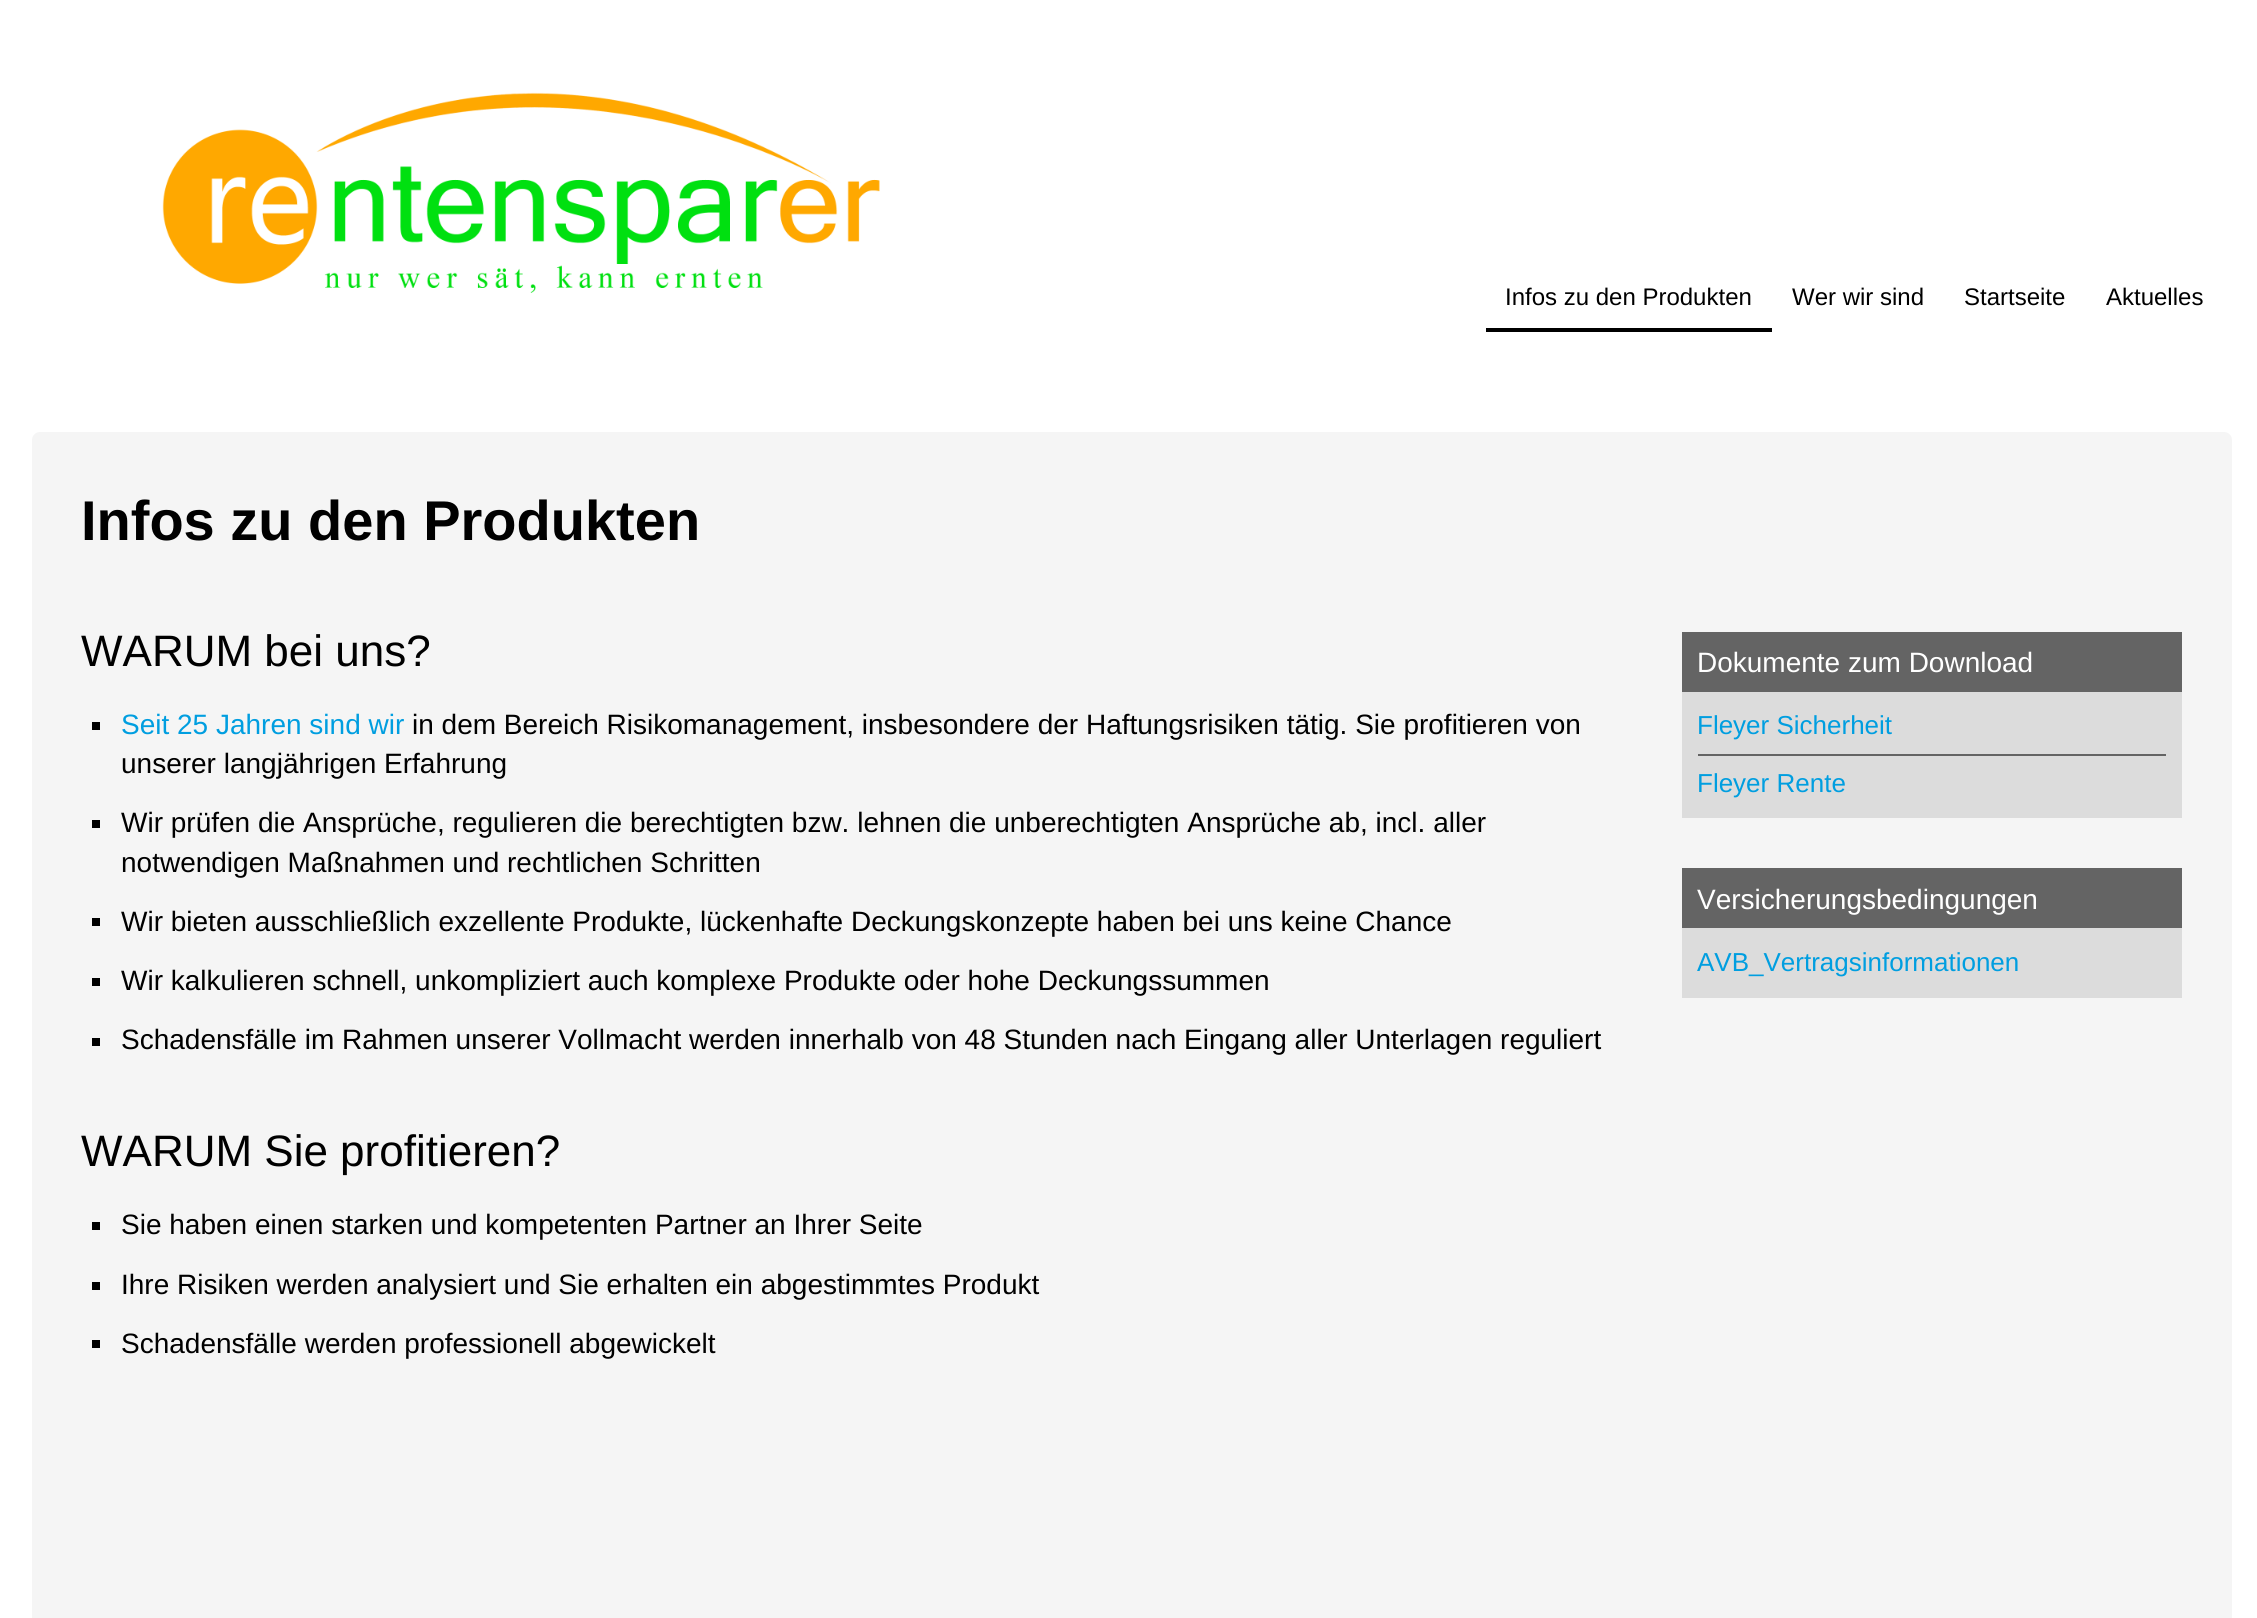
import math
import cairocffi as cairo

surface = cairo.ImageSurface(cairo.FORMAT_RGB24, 2257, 1618)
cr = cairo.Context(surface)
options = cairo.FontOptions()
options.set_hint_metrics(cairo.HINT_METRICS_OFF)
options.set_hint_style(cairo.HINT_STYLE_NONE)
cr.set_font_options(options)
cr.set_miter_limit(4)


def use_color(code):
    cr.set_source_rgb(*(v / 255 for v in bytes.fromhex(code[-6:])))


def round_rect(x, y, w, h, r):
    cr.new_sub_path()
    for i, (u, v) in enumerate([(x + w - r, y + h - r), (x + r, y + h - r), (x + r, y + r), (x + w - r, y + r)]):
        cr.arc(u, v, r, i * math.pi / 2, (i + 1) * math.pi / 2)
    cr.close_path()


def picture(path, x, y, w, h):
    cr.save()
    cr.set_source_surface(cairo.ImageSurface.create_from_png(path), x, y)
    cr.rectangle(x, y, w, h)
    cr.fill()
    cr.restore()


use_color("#ffffff")
cr.paint()
picture("img1.png", 162, 92, 718, 201)
use_color("#000000")
cr.rectangle(1486, 328, 286, 4)
cr.fill()
cr.select_font_face("Liberation Sans")
cr.set_font_size(24)
cr.move_to(1505, 305)
cr.show_text("Infos zu den Produkten")
cr.move_to(1792, 305)
cr.show_text("Wer wir sind")
cr.move_to(1964, 305)
cr.show_text("Startseite")
cr.move_to(2106, 305)
cr.show_text("Aktuelles")
use_color("#f5f5f5")
round_rect(31, 431, 2202, 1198, 9)
cr.fill_preserve()
use_color("#ffffff")
cr.stroke()
cr.select_font_face("Liberation Sans", cairo.FONT_SLANT_NORMAL, cairo.FONT_WEIGHT_BOLD)
cr.set_font_size(56)
use_color("#000000")
cr.move_to(81, 540)
cr.show_text("Infos zu den Produkten")
cr.select_font_face("Liberation Sans")
cr.set_font_size(44)
cr.move_to(81, 666)
cr.show_text("WARUM bei uns?")
use_color("#dcdcdc")
cr.rectangle(1682, 692, 500, 126)
cr.fill()
use_color("#646464")
cr.rectangle(1682, 632, 500, 60)
cr.fill()
cr.set_font_size(28)
use_color("#ffffff")
cr.move_to(1697, 672)
cr.show_text("Dokumente zum Download")
use_color("#646464")
cr.rectangle(1698, 754, 468, 2)
cr.fill()
cr.set_font_size(26)
use_color("#009ee0")
cr.move_to(1697, 734)
cr.show_text("Fleyer Sicherheit")
cr.move_to(1697, 792)
cr.show_text("Fleyer Rente")
use_color("#dcdcdc")
cr.rectangle(1682, 928, 500, 70)
cr.fill()
use_color("#646464")
cr.rectangle(1682, 868, 500, 60)
cr.fill()
cr.set_font_size(28)
use_color("#ffffff")
cr.move_to(1697, 909)
cr.show_text("Versicherungsbedingungen")
cr.set_font_size(26)
use_color("#009ee0")
cr.move_to(1697, 971)
cr.show_text("AVB_Vertragsinformationen")
use_color("#000000")
cr.rectangle(92, 722, 8, 8)
cr.fill()
cr.set_font_size(28)
use_color("#009ee0")
cr.move_to(121, 734)
cr.show_text("Seit 25 Jahren sind wir")
use_color("#000000")
cr.move_to(412, 734)
cr.show_text("in dem Bereich Risikomanagement, insbesondere der Haftungsrisiken tätig. Sie profitieren von")
cr.move_to(121, 773)
cr.show_text("unserer langjährigen Erfahrung")
cr.rectangle(92, 820, 8, 8)
cr.fill()
cr.move_to(121, 832)
cr.show_text("Wir prüfen die Ansprüche, regulieren die berechtigten bzw. lehnen die unberechtigten Ansprüche ab, incl. aller")
cr.move_to(121, 872)
cr.show_text("notwendigen Maßnahmen und rechtlichen Schritten")
cr.rectangle(92, 918, 8, 8)
cr.fill()
cr.move_to(121, 931)
cr.show_text("Wir bieten ausschließlich exzellente Produkte, lückenhafte Deckungskonzepte haben bei uns keine Chance")
cr.rectangle(92, 978, 8, 8)
cr.fill()
cr.move_to(121, 990)
cr.show_text("Wir kalkulieren schnell, unkompliziert auch komplexe Produkte oder hohe Deckungssummen")
cr.rectangle(92, 1038, 8, 8)
cr.fill()
cr.move_to(121, 1049)
cr.show_text("Schadensfälle im Rahmen unserer Vollmacht werden innerhalb von 48 Stunden nach Eingang aller Unterlagen reguliert")
cr.set_font_size(44)
cr.move_to(81, 1166)
cr.show_text("WARUM Sie profitieren?")
cr.rectangle(92, 1222, 8, 8)
cr.fill()
cr.set_font_size(28)
cr.move_to(121, 1234)
cr.show_text("Sie haben einen starken und kompetenten Partner an Ihrer Seite")
cr.rectangle(92, 1282, 8, 8)
cr.fill()
cr.move_to(121, 1294)
cr.show_text("Ihre Risiken werden analysiert und Sie erhalten ein abgestimmtes Produkt")
cr.rectangle(92, 1340, 8, 8)
cr.fill()
cr.move_to(121, 1353)
cr.show_text("Schadensfälle werden professionell abgewickelt")
surface.write_to_png("result.png")
